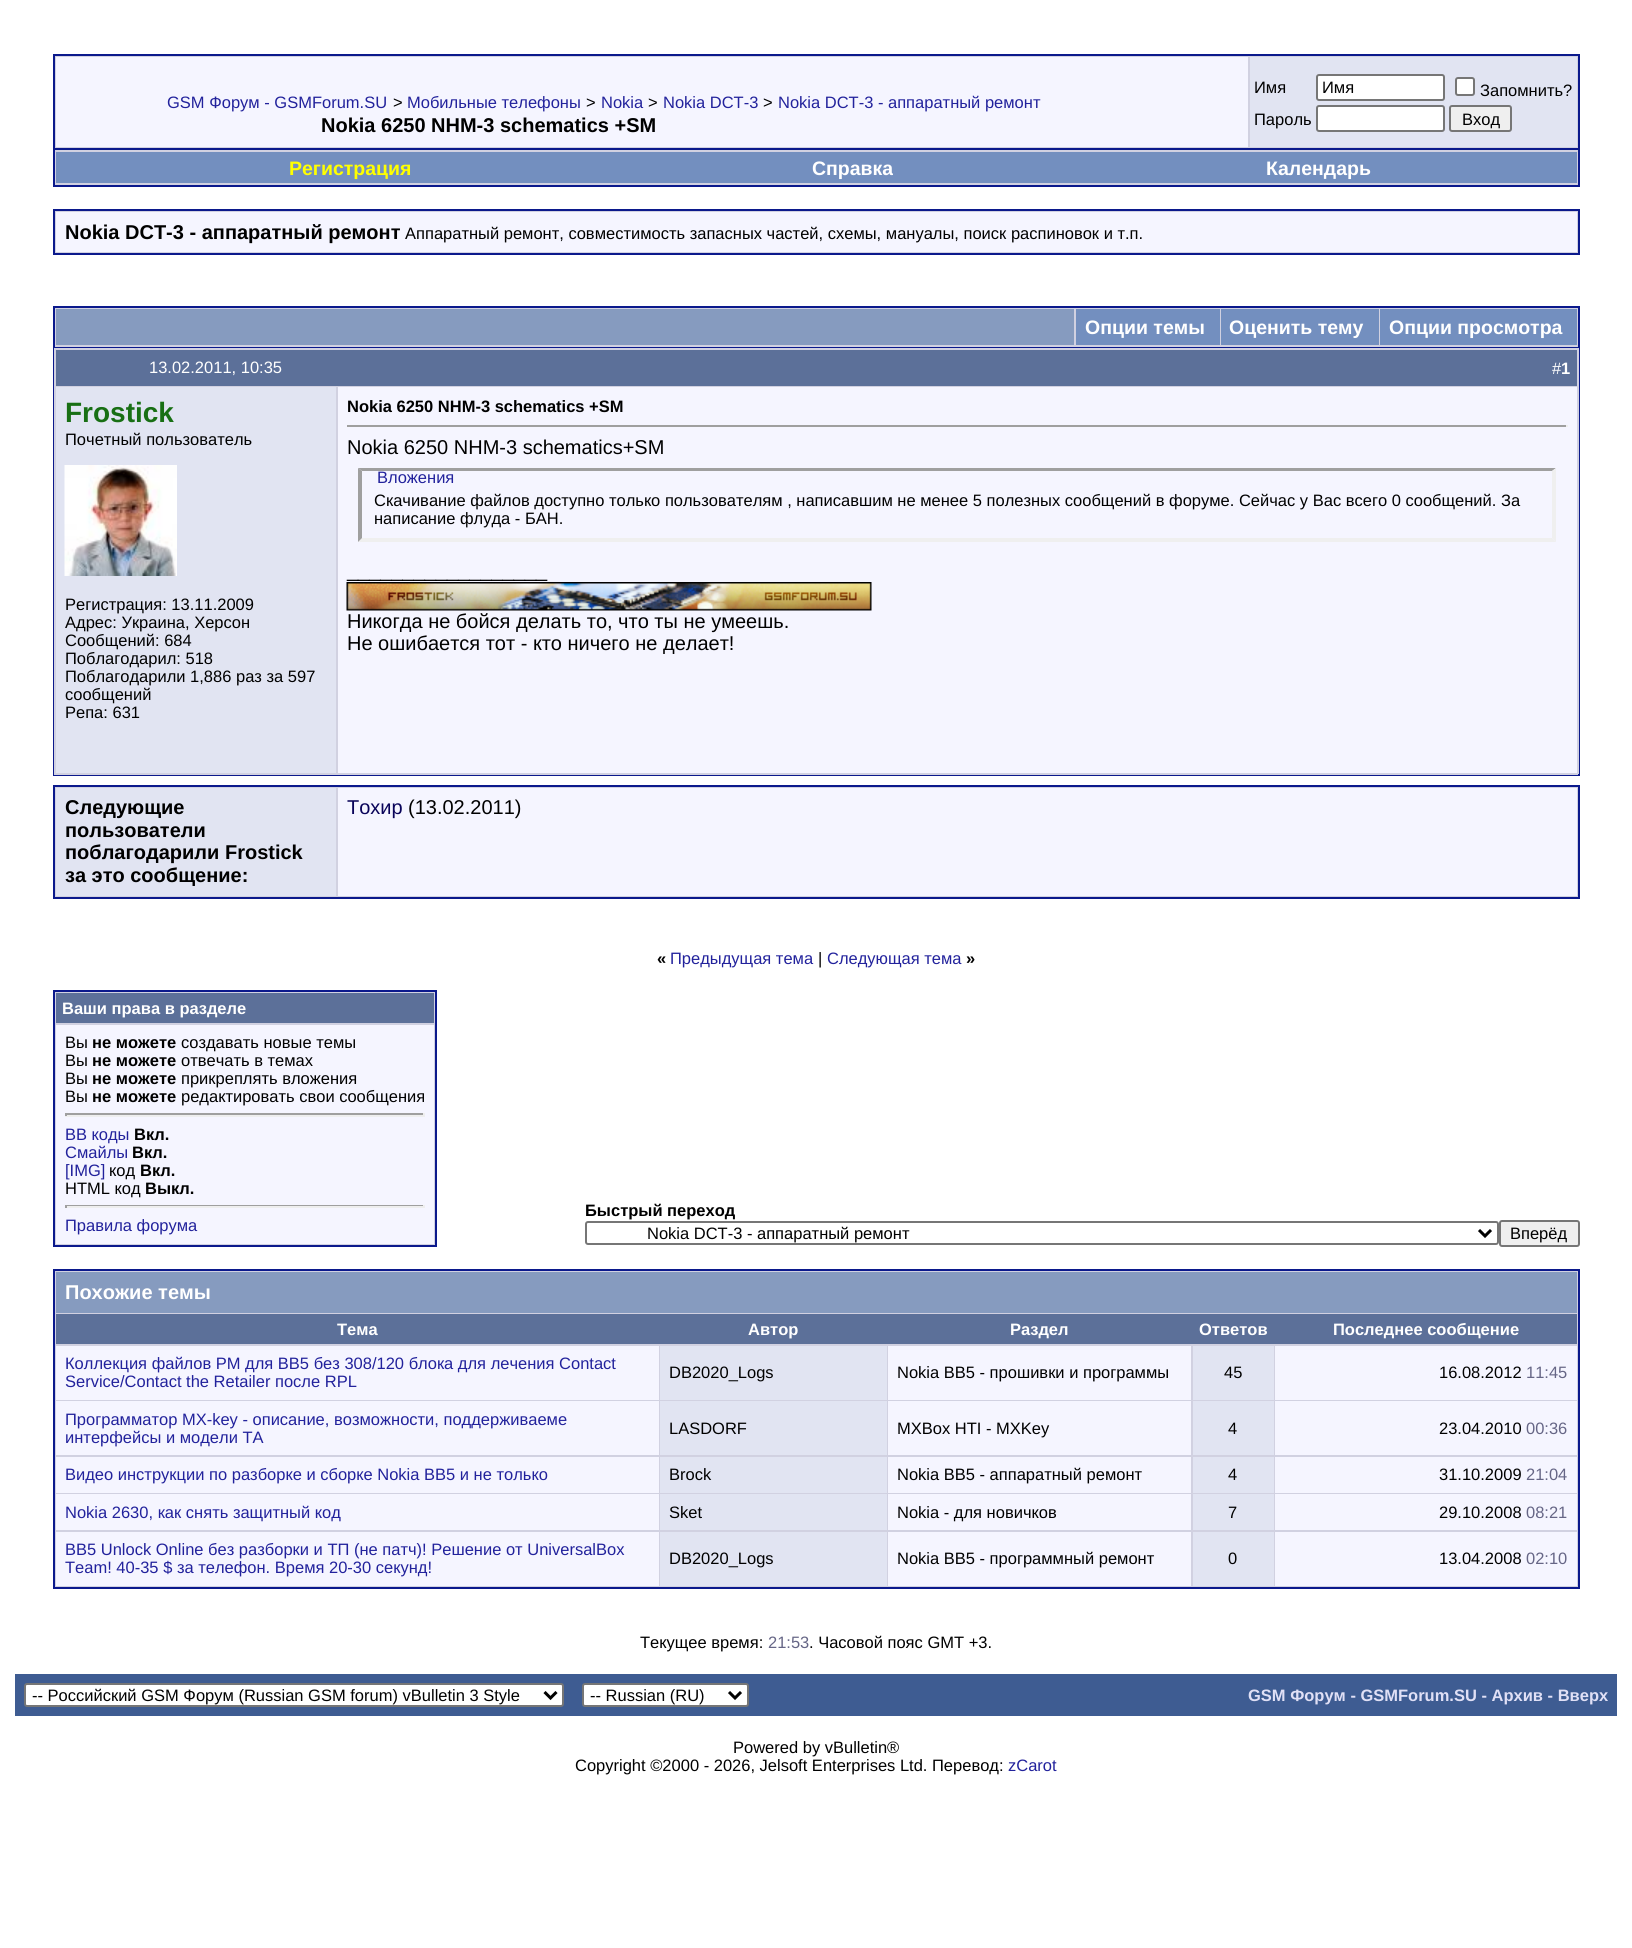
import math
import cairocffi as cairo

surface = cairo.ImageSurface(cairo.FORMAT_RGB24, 1632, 1948)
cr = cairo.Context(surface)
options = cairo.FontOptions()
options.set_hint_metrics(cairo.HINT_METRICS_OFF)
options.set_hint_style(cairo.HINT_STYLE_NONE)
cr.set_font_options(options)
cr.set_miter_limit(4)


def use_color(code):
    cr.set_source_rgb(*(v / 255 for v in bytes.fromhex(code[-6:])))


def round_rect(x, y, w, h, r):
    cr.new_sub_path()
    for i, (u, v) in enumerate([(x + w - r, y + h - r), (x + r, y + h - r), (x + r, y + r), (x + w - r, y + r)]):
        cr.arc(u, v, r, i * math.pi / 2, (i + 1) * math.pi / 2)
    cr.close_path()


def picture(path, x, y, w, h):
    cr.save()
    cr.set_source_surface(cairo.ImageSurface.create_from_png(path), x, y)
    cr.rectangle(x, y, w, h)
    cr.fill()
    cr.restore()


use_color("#ffffff")
cr.paint()
use_color("#d1d1e1")
cr.rectangle(54, 55, 1525, 94)
cr.fill_preserve()
use_color("#0b198c")
cr.stroke()
use_color("#f5f5ff")
cr.rectangle(56, 57, 1192, 90)
cr.fill()
cr.select_font_face("Liberation Sans")
cr.set_font_size(16.5)
use_color("#22229c")
cr.move_to(167, 108)
cr.show_text("GSM Форум - GSMForum.SU")
use_color("#000000")
cr.move_to(393, 108)
cr.show_text(">")
use_color("#22229c")
cr.move_to(407, 108)
cr.show_text("Мобильные телефоны")
use_color("#000000")
cr.move_to(586, 108)
cr.show_text(">")
use_color("#22229c")
cr.move_to(601, 108)
cr.show_text("Nokia")
use_color("#000000")
cr.move_to(648, 108)
cr.show_text(">")
use_color("#22229c")
cr.move_to(663, 108)
cr.show_text("Nokia DCT-3")
use_color("#000000")
cr.move_to(763, 108)
cr.show_text(">")
use_color("#22229c")
cr.move_to(778, 108)
cr.show_text("Nokia DCT-3 - аппаратный ремонт")
cr.select_font_face("Liberation Sans", cairo.FONT_SLANT_NORMAL, cairo.FONT_WEIGHT_BOLD)
cr.set_font_size(20)
use_color("#000000")
cr.move_to(321, 132)
cr.show_text("Nokia 6250 NHM-3 schematics +SM")
use_color("#e1e4f2")
cr.rectangle(1250, 57, 327, 90)
cr.fill()
cr.select_font_face("Liberation Sans")
cr.set_font_size(16.5)
use_color("#000000")
cr.move_to(1254, 93)
cr.show_text("Имя")
use_color("#ffffff")
round_rect(1317, 75, 127, 25, 2)
cr.fill_preserve()
use_color("#767676")
cr.stroke()
use_color("#000000")
cr.move_to(1322, 93)
cr.show_text("Имя")
use_color("#ffffff")
round_rect(1456, 78, 18, 17, 2)
cr.fill_preserve()
use_color("#767676")
cr.stroke()
use_color("#000000")
cr.move_to(1480, 96)
cr.show_text("Запомнить?")
cr.move_to(1254, 125)
cr.show_text("Пароль")
use_color("#ffffff")
round_rect(1317, 106, 127, 25, 2)
cr.fill_preserve()
use_color("#767676")
cr.stroke()
use_color("#efefef")
round_rect(1450, 106, 61, 25, 2)
cr.fill_preserve()
use_color("#767676")
cr.stroke()
use_color("#000000")
cr.move_to(1462, 125)
cr.show_text("Вход")
use_color("#d1d1e1")
cr.rectangle(55, 150, 1523, 35)
cr.fill()
use_color("#0b198c")
cr.rectangle(1578, 150, 2, 36)
cr.fill()
cr.rectangle(53, 185, 1527, 2)
cr.fill()
cr.rectangle(53, 150, 2, 36)
cr.fill()
use_color("#738fbf")
cr.rectangle(56, 152, 1521, 31)
cr.fill()
cr.select_font_face("Liberation Sans", cairo.FONT_SLANT_NORMAL, cairo.FONT_WEIGHT_BOLD)
cr.set_font_size(19.5)
use_color("#ffff00")
cr.move_to(289, 175)
cr.show_text("Регистрация")
use_color("#ffffff")
cr.move_to(812, 175)
cr.show_text("Справка")
cr.move_to(1266, 175)
cr.show_text("Календарь")
use_color("#d1d1e1")
cr.rectangle(54, 210, 1525, 44)
cr.fill_preserve()
use_color("#0b198c")
cr.stroke()
use_color("#f5f5ff")
cr.rectangle(56, 212, 1521, 40)
cr.fill()
cr.set_font_size(20)
use_color("#000000")
cr.move_to(65, 239)
cr.show_text("Nokia DCT-3 - аппаратный ремонт")
cr.select_font_face("Liberation Sans")
cr.set_font_size(16.5)
cr.move_to(405, 239)
cr.show_text("Аппаратный ремонт, совместимость запасных частей, схемы, мануалы, поиск распиновок и т.п.")
use_color("#d1d1e1")
cr.rectangle(55, 308, 1523, 39)
cr.fill()
use_color("#0b198c")
cr.rectangle(53, 306, 1527, 2)
cr.fill()
cr.rectangle(1578, 306, 2, 41)
cr.fill()
cr.rectangle(53, 306, 2, 41)
cr.fill()
use_color("#869bbf")
cr.rectangle(56, 309, 1018, 36)
cr.fill()
use_color("#738fbf")
cr.rectangle(1076, 309, 144, 36)
cr.fill()
cr.select_font_face("Liberation Sans", cairo.FONT_SLANT_NORMAL, cairo.FONT_WEIGHT_BOLD)
cr.set_font_size(19.5)
use_color("#ffffff")
cr.move_to(1085, 334)
cr.show_text("Опции темы")
use_color("#738fbf")
cr.rectangle(1221, 309, 158, 36)
cr.fill()
use_color("#ffffff")
cr.move_to(1229, 334)
cr.show_text("Оценить тему")
use_color("#738fbf")
cr.rectangle(1380, 309, 197, 36)
cr.fill()
use_color("#ffffff")
cr.move_to(1389, 334)
cr.show_text("Опции просмотра")
cr.rectangle(54, 348, 1525, 427)
use_color("#0b198c")
cr.stroke()
use_color("#5c7099")
cr.rectangle(56, 350, 1521, 36)
cr.fill()
use_color("#d1d1e1")
cr.rectangle(54, 348, 1524, 2)
cr.fill()
cr.rectangle(54, 386, 284, 1)
cr.fill()
cr.rectangle(54, 348, 2, 381)
cr.fill()
cr.select_font_face("Liberation Sans")
cr.set_font_size(16.5)
use_color("#ffffff")
cr.move_to(149, 373)
cr.show_text("13.02.2011, 10:35")
use_color("#d1d1e1")
cr.rectangle(1577, 348, 2, 426)
cr.fill()
cr.rectangle(338, 386, 1240, 1)
cr.fill()
use_color("#ffffff")
cr.move_to(1552, 374)
cr.show_text("#")
cr.select_font_face("Liberation Sans", cairo.FONT_SLANT_NORMAL, cairo.FONT_WEIGHT_BOLD)
cr.move_to(1561, 374)
cr.show_text("1")
use_color("#e1e4f2")
cr.rectangle(56, 387, 280, 386)
cr.fill()
use_color("#d1d1e1")
cr.rectangle(336, 387, 2, 387)
cr.fill()
cr.set_font_size(28)
use_color("#186f14")
cr.move_to(65, 422)
cr.show_text("Frostick")
cr.select_font_face("Liberation Sans")
cr.set_font_size(16.5)
use_color("#000000")
cr.move_to(65, 445)
cr.show_text("Почетный пользователь")
picture("img1.png", 64, 465, 113, 111)
cr.move_to(65, 610)
cr.show_text("Регистрация: 13.11.2009")
cr.move_to(65, 628)
cr.show_text("Адрес: Украина, Херсон")
cr.move_to(65, 646)
cr.show_text("Сообщений: 684")
cr.move_to(65, 664)
cr.show_text("Поблагодарил: 518")
cr.move_to(65, 682)
cr.show_text("Поблагодарили 1,886 раз за 597")
cr.move_to(65, 700)
cr.show_text("сообщений")
cr.move_to(65, 718)
cr.show_text("Репа: 631")
use_color("#f5f5ff")
cr.rectangle(338, 387, 1239, 386)
cr.fill()
cr.select_font_face("Liberation Sans", cairo.FONT_SLANT_NORMAL, cairo.FONT_WEIGHT_BOLD)
use_color("#000000")
cr.move_to(347, 412)
cr.show_text("Nokia 6250 NHM-3 schematics +SM")
use_color("#9f9f9f")
cr.rectangle(347, 425, 1221, 2)
cr.fill()
use_color("#eeeeee")
cr.rectangle(1566, 425, 2, 2)
cr.fill()
cr.select_font_face("Liberation Sans")
cr.set_font_size(20)
use_color("#000000")
cr.move_to(347, 454)
cr.show_text("Nokia 6250 NHM-3 schematics+SM")
use_color("#9f9f9f")
cr.new_path()
cr.move_to(358, 468)
cr.line_to(1556, 468)
cr.line_to(1552, 471)
cr.line_to(362, 471)
cr.close_path()
cr.fill()
use_color("#efefef")
cr.new_path()
cr.move_to(1556, 468)
cr.line_to(1556, 542)
cr.line_to(1552, 538)
cr.line_to(1552, 471)
cr.close_path()
cr.fill()
cr.new_path()
cr.move_to(1556, 542)
cr.line_to(358, 542)
cr.line_to(362, 538)
cr.line_to(1552, 538)
cr.close_path()
cr.fill()
use_color("#9f9f9f")
cr.new_path()
cr.move_to(358, 542)
cr.line_to(358, 468)
cr.line_to(362, 471)
cr.line_to(362, 538)
cr.close_path()
cr.fill()
cr.set_font_size(16.5)
use_color("#22229c")
cr.move_to(377, 483)
cr.show_text("Вложения")
use_color("#000000")
cr.move_to(374, 506)
cr.show_text("Скачивание файлов доступно только пользователям , написавшим не менее 5 полезных сообщений в форуме. Сейчас у Вас всего 0 сообщений. За")
cr.move_to(374, 524)
cr.show_text("написание флуда - БАН.")
cr.set_font_size(20)
cr.move_to(347, 577)
cr.show_text("__________________")
picture("img2.png", 346, 582, 526, 29)
cr.move_to(347, 628)
cr.show_text("Никогда не бойся делать то, что ты не умеешь.")
cr.move_to(347, 650)
cr.show_text("Не ошибается тот - кто ничего не делает!")
use_color("#d1d1e1")
cr.rectangle(54, 773, 1524, 2)
cr.fill()
cr.rectangle(54, 729, 2, 45)
cr.fill()
cr.rectangle(54, 786, 1525, 112)
cr.fill_preserve()
use_color("#0b198c")
cr.stroke()
use_color("#e1e4f2")
cr.rectangle(56, 788, 280, 108)
cr.fill()
cr.select_font_face("Liberation Sans", cairo.FONT_SLANT_NORMAL, cairo.FONT_WEIGHT_BOLD)
use_color("#000000")
cr.move_to(65, 814)
cr.show_text("Следующие")
cr.move_to(65, 837)
cr.show_text("пользователи")
cr.move_to(65, 859)
cr.show_text("поблагодарили Frostick")
cr.move_to(65, 882)
cr.show_text("за это сообщение:")
use_color("#f5f5ff")
cr.rectangle(338, 788, 1239, 108)
cr.fill()
cr.select_font_face("Liberation Sans")
use_color("#090359")
cr.move_to(347, 814)
cr.show_text("Тохир")
use_color("#000000")
cr.move_to(408, 814)
cr.show_text("(13.02.2011)")
cr.select_font_face("Liberation Sans", cairo.FONT_SLANT_NORMAL, cairo.FONT_WEIGHT_BOLD)
cr.set_font_size(16.5)
cr.move_to(657, 964)
cr.show_text("«")
cr.select_font_face("Liberation Sans")
use_color("#22229c")
cr.move_to(670, 964)
cr.show_text("Предыдущая тема")
use_color("#000000")
cr.move_to(818, 964)
cr.show_text("|")
use_color("#22229c")
cr.move_to(827, 964)
cr.show_text("Следующая тема")
cr.select_font_face("Liberation Sans", cairo.FONT_SLANT_NORMAL, cairo.FONT_WEIGHT_BOLD)
use_color("#000000")
cr.move_to(966, 964)
cr.show_text("»")
use_color("#d1d1e1")
cr.rectangle(54, 991, 382, 255)
cr.fill_preserve()
use_color("#0b198c")
cr.stroke()
use_color("#5c7099")
cr.rectangle(56, 993, 378, 30)
cr.fill()
use_color("#ffffff")
cr.move_to(62, 1014)
cr.show_text("Ваши права в разделе")
use_color("#f5f5ff")
cr.rectangle(56, 1025, 378, 219)
cr.fill()
cr.select_font_face("Liberation Sans")
use_color("#000000")
cr.move_to(65, 1048)
cr.show_text("Вы")
cr.select_font_face("Liberation Sans", cairo.FONT_SLANT_NORMAL, cairo.FONT_WEIGHT_BOLD)
cr.move_to(92, 1048)
cr.show_text("не можете")
cr.select_font_face("Liberation Sans")
cr.move_to(181, 1048)
cr.show_text("создавать новые темы")
cr.move_to(65, 1066)
cr.show_text("Вы")
cr.select_font_face("Liberation Sans", cairo.FONT_SLANT_NORMAL, cairo.FONT_WEIGHT_BOLD)
cr.move_to(92, 1066)
cr.show_text("не можете")
cr.select_font_face("Liberation Sans")
cr.move_to(181, 1066)
cr.show_text("отвечать в темах")
cr.move_to(65, 1084)
cr.show_text("Вы")
cr.select_font_face("Liberation Sans", cairo.FONT_SLANT_NORMAL, cairo.FONT_WEIGHT_BOLD)
cr.move_to(92, 1084)
cr.show_text("не можете")
cr.select_font_face("Liberation Sans")
cr.move_to(181, 1084)
cr.show_text("прикреплять вложения")
cr.move_to(65, 1102)
cr.show_text("Вы")
cr.select_font_face("Liberation Sans", cairo.FONT_SLANT_NORMAL, cairo.FONT_WEIGHT_BOLD)
cr.move_to(92, 1102)
cr.show_text("не можете")
cr.select_font_face("Liberation Sans")
cr.move_to(181, 1102)
cr.show_text("редактировать свои сообщения")
use_color("#9f9f9f")
cr.rectangle(65, 1113, 360, 2)
cr.fill()
use_color("#eeeeee")
cr.rectangle(423, 1113, 2, 3)
cr.fill()
cr.rectangle(65, 1115, 360, 2)
cr.fill()
use_color("#9f9f9f")
cr.rectangle(65, 1113, 2, 3)
cr.fill()
use_color("#22229c")
cr.move_to(65, 1140)
cr.show_text("BB коды")
cr.select_font_face("Liberation Sans", cairo.FONT_SLANT_NORMAL, cairo.FONT_WEIGHT_BOLD)
use_color("#000000")
cr.move_to(134, 1140)
cr.show_text("Вкл.")
cr.select_font_face("Liberation Sans")
use_color("#22229c")
cr.move_to(65, 1158)
cr.show_text("Смайлы")
cr.select_font_face("Liberation Sans", cairo.FONT_SLANT_NORMAL, cairo.FONT_WEIGHT_BOLD)
use_color("#000000")
cr.move_to(132, 1158)
cr.show_text("Вкл.")
cr.select_font_face("Liberation Sans")
use_color("#22229c")
cr.move_to(65, 1176)
cr.show_text("[IMG]")
use_color("#000000")
cr.move_to(109, 1176)
cr.show_text("код")
cr.select_font_face("Liberation Sans", cairo.FONT_SLANT_NORMAL, cairo.FONT_WEIGHT_BOLD)
cr.move_to(140, 1176)
cr.show_text("Вкл.")
cr.select_font_face("Liberation Sans")
cr.move_to(65, 1194)
cr.show_text("HTML код")
cr.select_font_face("Liberation Sans", cairo.FONT_SLANT_NORMAL, cairo.FONT_WEIGHT_BOLD)
cr.move_to(145, 1194)
cr.show_text("Выкл.")
use_color("#9f9f9f")
cr.rectangle(65, 1205, 360, 1)
cr.fill()
use_color("#eeeeee")
cr.rectangle(423, 1205, 2, 3)
cr.fill()
cr.rectangle(65, 1206, 360, 2)
cr.fill()
use_color("#9f9f9f")
cr.rectangle(65, 1205, 2, 3)
cr.fill()
cr.select_font_face("Liberation Sans")
use_color("#22229c")
cr.move_to(65, 1231)
cr.show_text("Правила форума")
cr.select_font_face("Liberation Sans", cairo.FONT_SLANT_NORMAL, cairo.FONT_WEIGHT_BOLD)
use_color("#000000")
cr.move_to(585, 1216)
cr.show_text("Быстрый переход")
round_rect(586, 1222, 912, 22, 2)
use_color("#767676")
cr.stroke()
cr.new_path()
cr.move_to(1479, 1230)
cr.line_to(1485, 1236)
cr.line_to(1491, 1230)
use_color("#000000")
cr.set_line_width(3)
cr.stroke()
cr.select_font_face("Liberation Sans")
cr.move_to(647, 1239)
cr.show_text("Nokia DCT-3 - аппаратный ремонт")
use_color("#efefef")
round_rect(1500, 1221, 79, 25, 2)
cr.fill_preserve()
use_color("#767676")
cr.set_line_width(2)
cr.stroke()
use_color("#000000")
cr.move_to(1510, 1239)
cr.show_text("Вперёд")
use_color("#d1d1e1")
cr.rectangle(54, 1270, 1525, 318)
cr.fill_preserve()
use_color("#0b198c")
cr.stroke()
use_color("#869bbf")
cr.rectangle(56, 1272, 1521, 41)
cr.fill()
cr.select_font_face("Liberation Sans", cairo.FONT_SLANT_NORMAL, cairo.FONT_WEIGHT_BOLD)
cr.set_font_size(20)
use_color("#ffffff")
cr.move_to(65, 1299)
cr.show_text("Похожие темы")
use_color("#5c7099")
cr.rectangle(56, 1314, 1521, 30)
cr.fill()
cr.set_font_size(16.5)
use_color("#ffffff")
cr.move_to(337, 1335)
cr.show_text("Тема")
cr.move_to(748, 1335)
cr.show_text("Автор")
cr.move_to(1010, 1335)
cr.show_text("Раздел")
cr.move_to(1199, 1335)
cr.show_text("Ответов")
cr.move_to(1333, 1335)
cr.show_text("Последнее сообщение")
use_color("#f5f5ff")
cr.rectangle(56, 1346, 603, 54)
cr.fill()
cr.select_font_face("Liberation Sans")
use_color("#22229c")
cr.move_to(65, 1369)
cr.show_text("Коллекция файлов PM для BB5 без 308/120 блока для лечения Contact")
cr.move_to(65, 1387)
cr.show_text("Service/Contact the Retailer после RPL")
use_color("#e1e4f2")
cr.rectangle(660, 1346, 227, 54)
cr.fill()
use_color("#000000")
cr.move_to(669, 1378)
cr.show_text("DB2020_Logs")
use_color("#f5f5ff")
cr.rectangle(888, 1346, 303, 54)
cr.fill()
use_color("#000000")
cr.move_to(897, 1378)
cr.show_text("Nokia BB5 - прошивки и программы")
use_color("#e1e4f2")
cr.rectangle(1193, 1346, 81, 54)
cr.fill()
use_color("#000000")
cr.move_to(1224, 1378)
cr.show_text("45")
use_color("#f5f5ff")
cr.rectangle(1275, 1346, 302, 54)
cr.fill()
use_color("#000000")
cr.move_to(1439, 1378)
cr.show_text("16.08.2012")
use_color("#666686")
cr.move_to(1526, 1378)
cr.show_text("11:45")
use_color("#f5f5ff")
cr.rectangle(56, 1401, 603, 54)
cr.fill()
use_color("#22229c")
cr.move_to(65, 1425)
cr.show_text("Программатор MX-key - описание, возможности, поддерживаеме")
cr.move_to(65, 1443)
cr.show_text("интерфейсы и модели ТА")
use_color("#e1e4f2")
cr.rectangle(660, 1401, 227, 54)
cr.fill()
use_color("#000000")
cr.move_to(669, 1434)
cr.show_text("LASDORF")
use_color("#f5f5ff")
cr.rectangle(888, 1401, 303, 54)
cr.fill()
use_color("#000000")
cr.move_to(897, 1434)
cr.show_text("MXBox HTI - MXKey")
use_color("#e1e4f2")
cr.rectangle(1193, 1401, 81, 54)
cr.fill()
use_color("#000000")
cr.move_to(1228, 1434)
cr.show_text("4")
use_color("#f5f5ff")
cr.rectangle(1275, 1401, 302, 54)
cr.fill()
use_color("#000000")
cr.move_to(1439, 1434)
cr.show_text("23.04.2010")
use_color("#666686")
cr.move_to(1526, 1434)
cr.show_text("00:36")
use_color("#f5f5ff")
cr.rectangle(56, 1457, 603, 36)
cr.fill()
use_color("#22229c")
cr.move_to(65, 1480)
cr.show_text("Видео инструкции по разборке и сборке Nokia BB5 и не только")
use_color("#e1e4f2")
cr.rectangle(660, 1457, 227, 36)
cr.fill()
use_color("#000000")
cr.move_to(669, 1480)
cr.show_text("Brock")
use_color("#f5f5ff")
cr.rectangle(888, 1457, 303, 36)
cr.fill()
use_color("#000000")
cr.move_to(897, 1480)
cr.show_text("Nokia BB5 - аппаратный ремонт")
use_color("#e1e4f2")
cr.rectangle(1193, 1457, 81, 36)
cr.fill()
use_color("#000000")
cr.move_to(1228, 1480)
cr.show_text("4")
use_color("#f5f5ff")
cr.rectangle(1275, 1457, 302, 36)
cr.fill()
use_color("#000000")
cr.move_to(1439, 1480)
cr.show_text("31.10.2009")
use_color("#666686")
cr.move_to(1526, 1480)
cr.show_text("21:04")
use_color("#f5f5ff")
cr.rectangle(56, 1494, 603, 36)
cr.fill()
use_color("#22229c")
cr.move_to(65, 1518)
cr.show_text("Nokia 2630, как снять защитный код")
use_color("#e1e4f2")
cr.rectangle(660, 1494, 227, 36)
cr.fill()
use_color("#000000")
cr.move_to(669, 1518)
cr.show_text("Sket")
use_color("#f5f5ff")
cr.rectangle(888, 1494, 303, 36)
cr.fill()
use_color("#000000")
cr.move_to(897, 1518)
cr.show_text("Nokia - для новичков")
use_color("#e1e4f2")
cr.rectangle(1193, 1494, 81, 36)
cr.fill()
use_color("#000000")
cr.move_to(1228, 1518)
cr.show_text("7")
use_color("#f5f5ff")
cr.rectangle(1275, 1494, 302, 36)
cr.fill()
use_color("#000000")
cr.move_to(1439, 1518)
cr.show_text("29.10.2008")
use_color("#666686")
cr.move_to(1526, 1518)
cr.show_text("08:21")
use_color("#f5f5ff")
cr.rectangle(56, 1532, 603, 54)
cr.fill()
use_color("#22229c")
cr.move_to(65, 1555)
cr.show_text("BB5 Unlock Online без разборки и ТП (не патч)! Решение от UniversalBox")
cr.move_to(65, 1573)
cr.show_text("Team! 40-35 $ за телефон. Время 20-30 секунд!")
use_color("#e1e4f2")
cr.rectangle(660, 1532, 227, 54)
cr.fill()
use_color("#000000")
cr.move_to(669, 1564)
cr.show_text("DB2020_Logs")
use_color("#f5f5ff")
cr.rectangle(888, 1532, 303, 54)
cr.fill()
use_color("#000000")
cr.move_to(897, 1564)
cr.show_text("Nokia BB5 - программный ремонт")
use_color("#e1e4f2")
cr.rectangle(1193, 1532, 81, 54)
cr.fill()
use_color("#000000")
cr.move_to(1228, 1564)
cr.show_text("0")
use_color("#f5f5ff")
cr.rectangle(1275, 1532, 302, 54)
cr.fill()
use_color("#000000")
cr.move_to(1439, 1564)
cr.show_text("13.04.2008")
use_color("#666686")
cr.move_to(1526, 1564)
cr.show_text("02:10")
use_color("#000000")
cr.move_to(640, 1648)
cr.show_text("Текущее время:")
use_color("#666686")
cr.move_to(768, 1648)
cr.show_text("21:53")
use_color("#000000")
cr.move_to(809, 1648)
cr.show_text(". Часовой пояс GMT +3.")
use_color("#3e5c92")
cr.rectangle(15, 1674, 1602, 42)
cr.fill()
use_color("#ffffff")
round_rect(25, 1684, 538, 22, 2)
cr.fill_preserve()
use_color("#767676")
cr.stroke()
cr.new_path()
cr.move_to(544.5, 1692)
cr.line_to(550.5, 1698)
cr.line_to(556.5, 1692)
use_color("#000000")
cr.set_line_width(3)
cr.stroke()
cr.move_to(32, 1701)
cr.show_text("-- Российский GSM Форум (Russian GSM forum) vBulletin 3 Style")
use_color("#ffffff")
round_rect(583, 1684, 165, 22, 2)
cr.fill_preserve()
use_color("#767676")
cr.set_line_width(2)
cr.stroke()
cr.new_path()
cr.move_to(729, 1692)
cr.line_to(735, 1698)
cr.line_to(741, 1692)
use_color("#000000")
cr.set_line_width(3)
cr.stroke()
cr.move_to(590, 1701)
cr.show_text("-- Russian (RU)")
cr.select_font_face("Liberation Sans", cairo.FONT_SLANT_NORMAL, cairo.FONT_WEIGHT_BOLD)
use_color("#e0e0f6")
cr.move_to(1248, 1701)
cr.show_text("GSM Форум - GSMForum.SU - Архив - Вверх")
cr.select_font_face("Liberation Sans")
use_color("#000000")
cr.move_to(733, 1753)
cr.show_text("Powered by vBulletin®")
cr.move_to(575, 1771)
cr.show_text("Copyright ©2000 - 2026, Jelsoft Enterprises Ltd. Перевод:")
use_color("#22229c")
cr.move_to(1008, 1771)
cr.show_text("zCarot")
surface.write_to_png("result.png")
